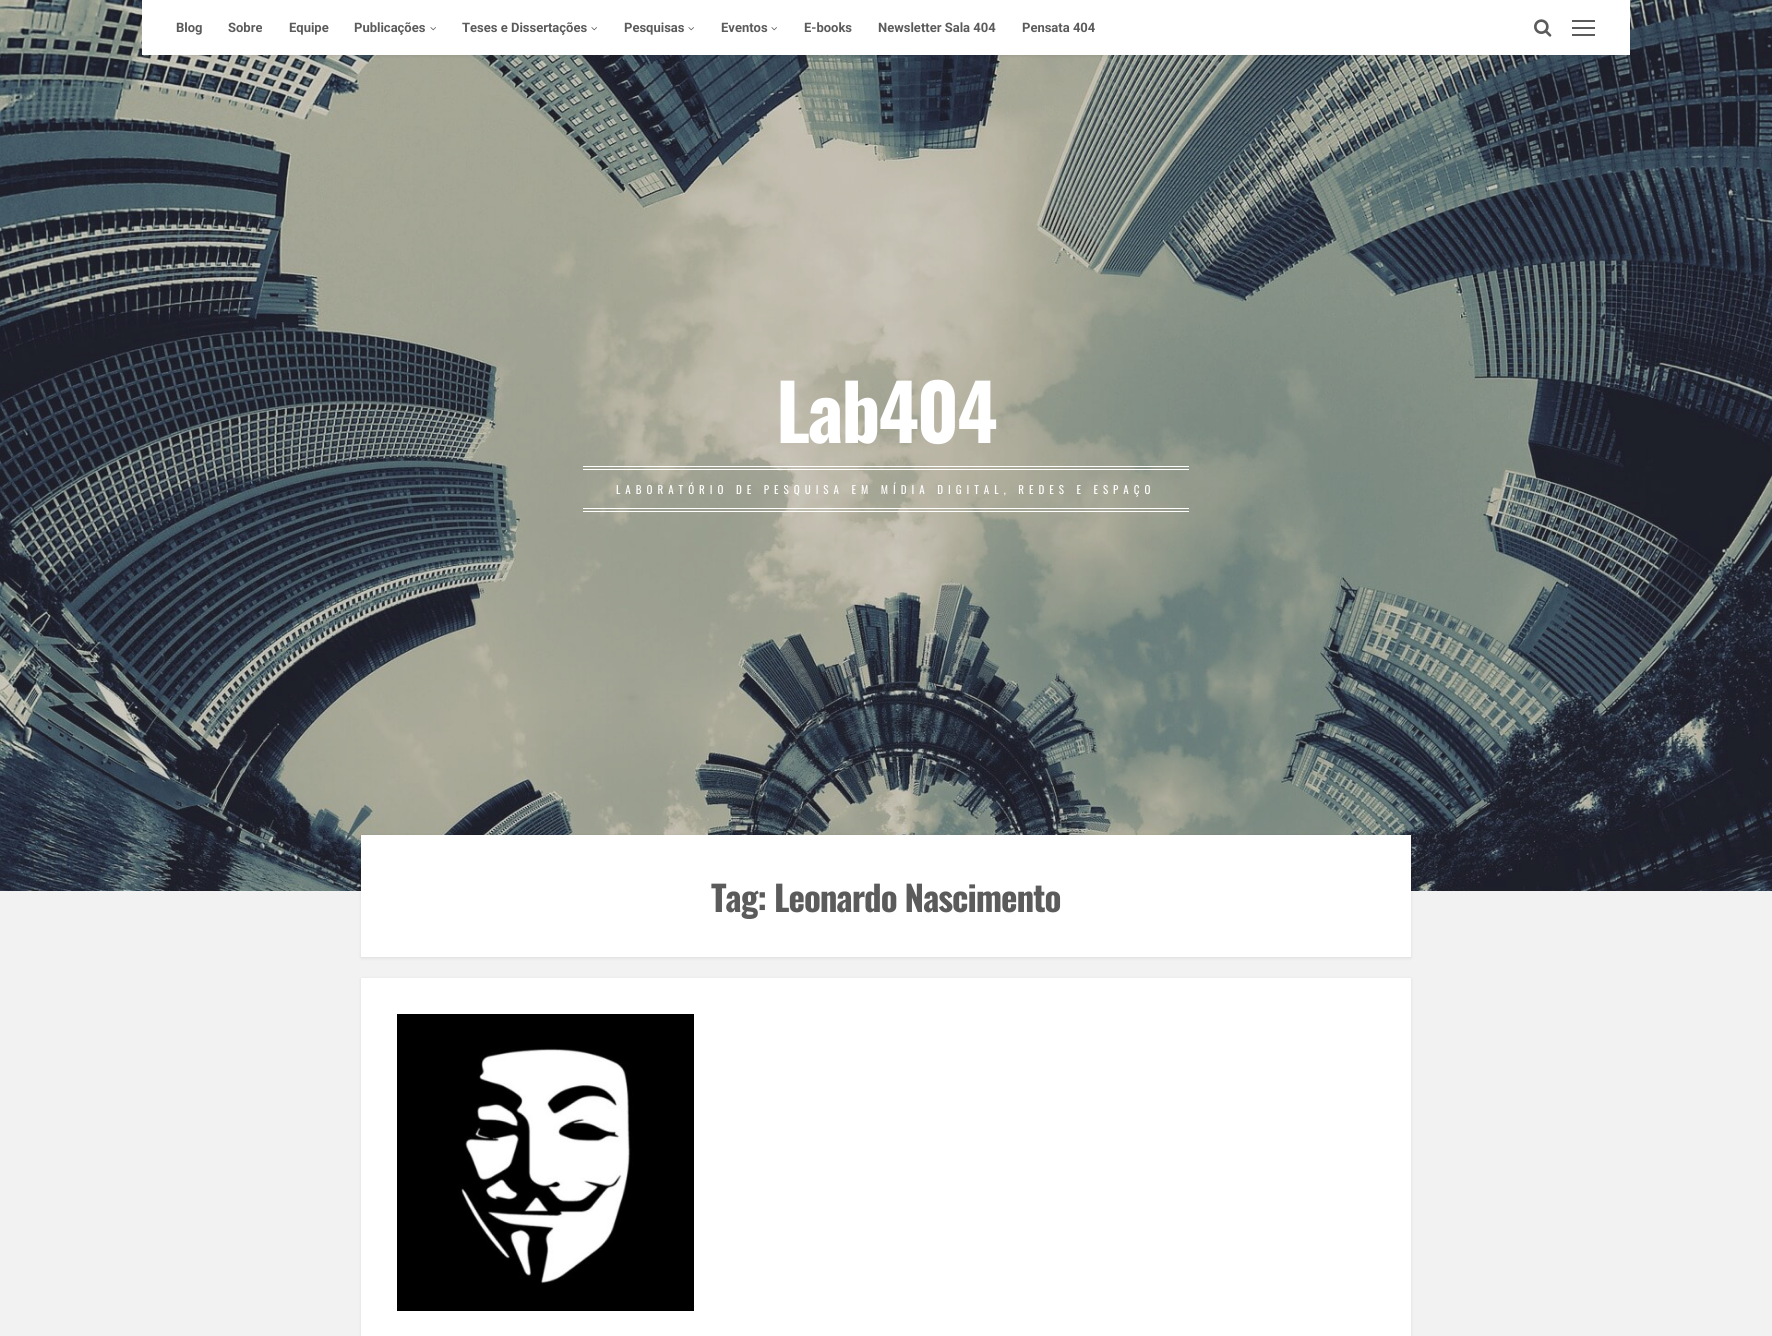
import math
import cairocffi as cairo

surface = cairo.ImageSurface(cairo.FORMAT_RGB24, 1772, 1336)
cr = cairo.Context(surface)
options = cairo.FontOptions()
options.set_hint_metrics(cairo.HINT_METRICS_OFF)
options.set_hint_style(cairo.HINT_STYLE_NONE)
cr.set_font_options(options)
cr.set_miter_limit(4)


def use_color(code):
    cr.set_source_rgb(*(v / 255 for v in bytes.fromhex(code[-6:])))


def spaced_text(x, y, s, letter, word):
    cr.move_to(x, y)
    for ch in s:
        cr.show_text(ch)
        cr.rel_move_to(letter + word * (ch == ' '), 0)


def round_rect(x, y, w, h, r):
    cr.new_sub_path()
    for i, (u, v) in enumerate([(x + w - r, y + h - r), (x + r, y + h - r), (x + r, y + r), (x + w - r, y + r)]):
        cr.arc(u, v, r, i * math.pi / 2, (i + 1) * math.pi / 2)
    cr.close_path()


def shadow(x, y, w, h, r, blur, alpha):
    cr.push_group_with_content(cairo.CONTENT_ALPHA)
    cr.set_operator(cairo.OPERATOR_SOURCE)
    for i in range(15, -16, -2):
        e = blur * i / 6
        if min(w, h) + 2 * e > 0:
            cr.set_source_rgba(0, 0, 0, alpha * math.erfc((i - 1) / 8.5) / 2)
            round_rect(x - e, y - e, w + 2 * e, h + 2 * e, max(0, min(r + e + blur * .6, min(w, h) / 2 + e)))
            cr.fill()
    cr.mask(cr.pop_group())


def picture(path, x, y, w, h):
    cr.save()
    cr.set_source_surface(cairo.ImageSurface.create_from_png(path), x, y)
    cr.rectangle(x, y, w, h)
    cr.fill()
    cr.restore()


use_color("#f2f2f2")
cr.paint()
picture("img3.png", 0, 0, 1772, 891)
use_color("#0d0d0d")
shadow(142, 1, 1488, 55, 0, 1.5, 0.1)
use_color("#ffffff")
cr.rectangle(142, 0, 1488, 55)
cr.fill()
cr.select_font_face("Roboto", cairo.FONT_SLANT_NORMAL, cairo.FONT_WEIGHT_BOLD)
cr.set_font_size(13)
use_color("#5b5b5b")
cr.move_to(176, 32)
cr.show_text("Blog")
cr.move_to(228, 32)
cr.show_text("Sobre")
cr.move_to(289, 32)
cr.show_text("Equipe")
cr.move_to(354, 32)
cr.show_text("Publicações")
picture("img1.png", 430, 27, 6, 4)
cr.move_to(462, 32)
cr.show_text("Teses e Dissertações")
picture("img1.png", 591, 27, 6, 4)
cr.move_to(624, 32)
cr.show_text("Pesquisas")
picture("img1.png", 688, 27, 6, 4)
cr.move_to(721, 32)
cr.show_text("Eventos")
picture("img1.png", 771, 27, 6, 4)
cr.move_to(804, 32)
cr.show_text("E-books")
cr.move_to(878, 32)
cr.show_text("Newsletter Sala 404")
cr.move_to(1022, 32)
cr.show_text("Pensata 404")
picture("img2.png", 1534, 19, 18, 18)
cr.rectangle(1572, 27, 23, 2)
cr.fill()
cr.rectangle(1572, 20, 23, 2)
cr.fill()
cr.rectangle(1572, 34, 23, 2)
cr.fill()
cr.select_font_face("Oswald", cairo.FONT_SLANT_NORMAL, cairo.FONT_WEIGHT_BOLD)
cr.set_font_size(77)
use_color("#ffffff")
spaced_text(776, 443, "Lab404", -2, 0)
cr.rectangle(583, 466, 606, 1)
cr.fill()
cr.rectangle(583, 469, 606, 1)
cr.fill()
cr.rectangle(583, 508, 606, 1)
cr.fill()
cr.rectangle(583, 511, 606, 1)
cr.fill()
cr.select_font_face("Oswald")
cr.set_font_size(11)
spaced_text(616, 494, "LABORATÓRIO DE PESQUISA EM MÍDIA DIGITAL, REDES E ESPAÇO", 5, 0)
use_color("#0d0d0d")
shadow(361, 836, 1050, 122, 0, 1.5, 0.1)
use_color("#ffffff")
cr.rectangle(361, 835, 1050, 122)
cr.fill()
cr.select_font_face("Oswald", cairo.FONT_SLANT_NORMAL, cairo.FONT_WEIGHT_BOLD)
cr.set_font_size(35)
use_color("#5b5b5b")
spaced_text(711, 912, "Tag: Leonardo Nascimento", -1, 0)
use_color("#0d0d0d")
shadow(361, 979, 1050, 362, 0, 1.5, 0.1)
use_color("#ffffff")
cr.rectangle(361, 978, 1050, 358)
cr.fill()
picture("img4.png", 397, 1014, 297, 297)
surface.write_to_png("result.png")
